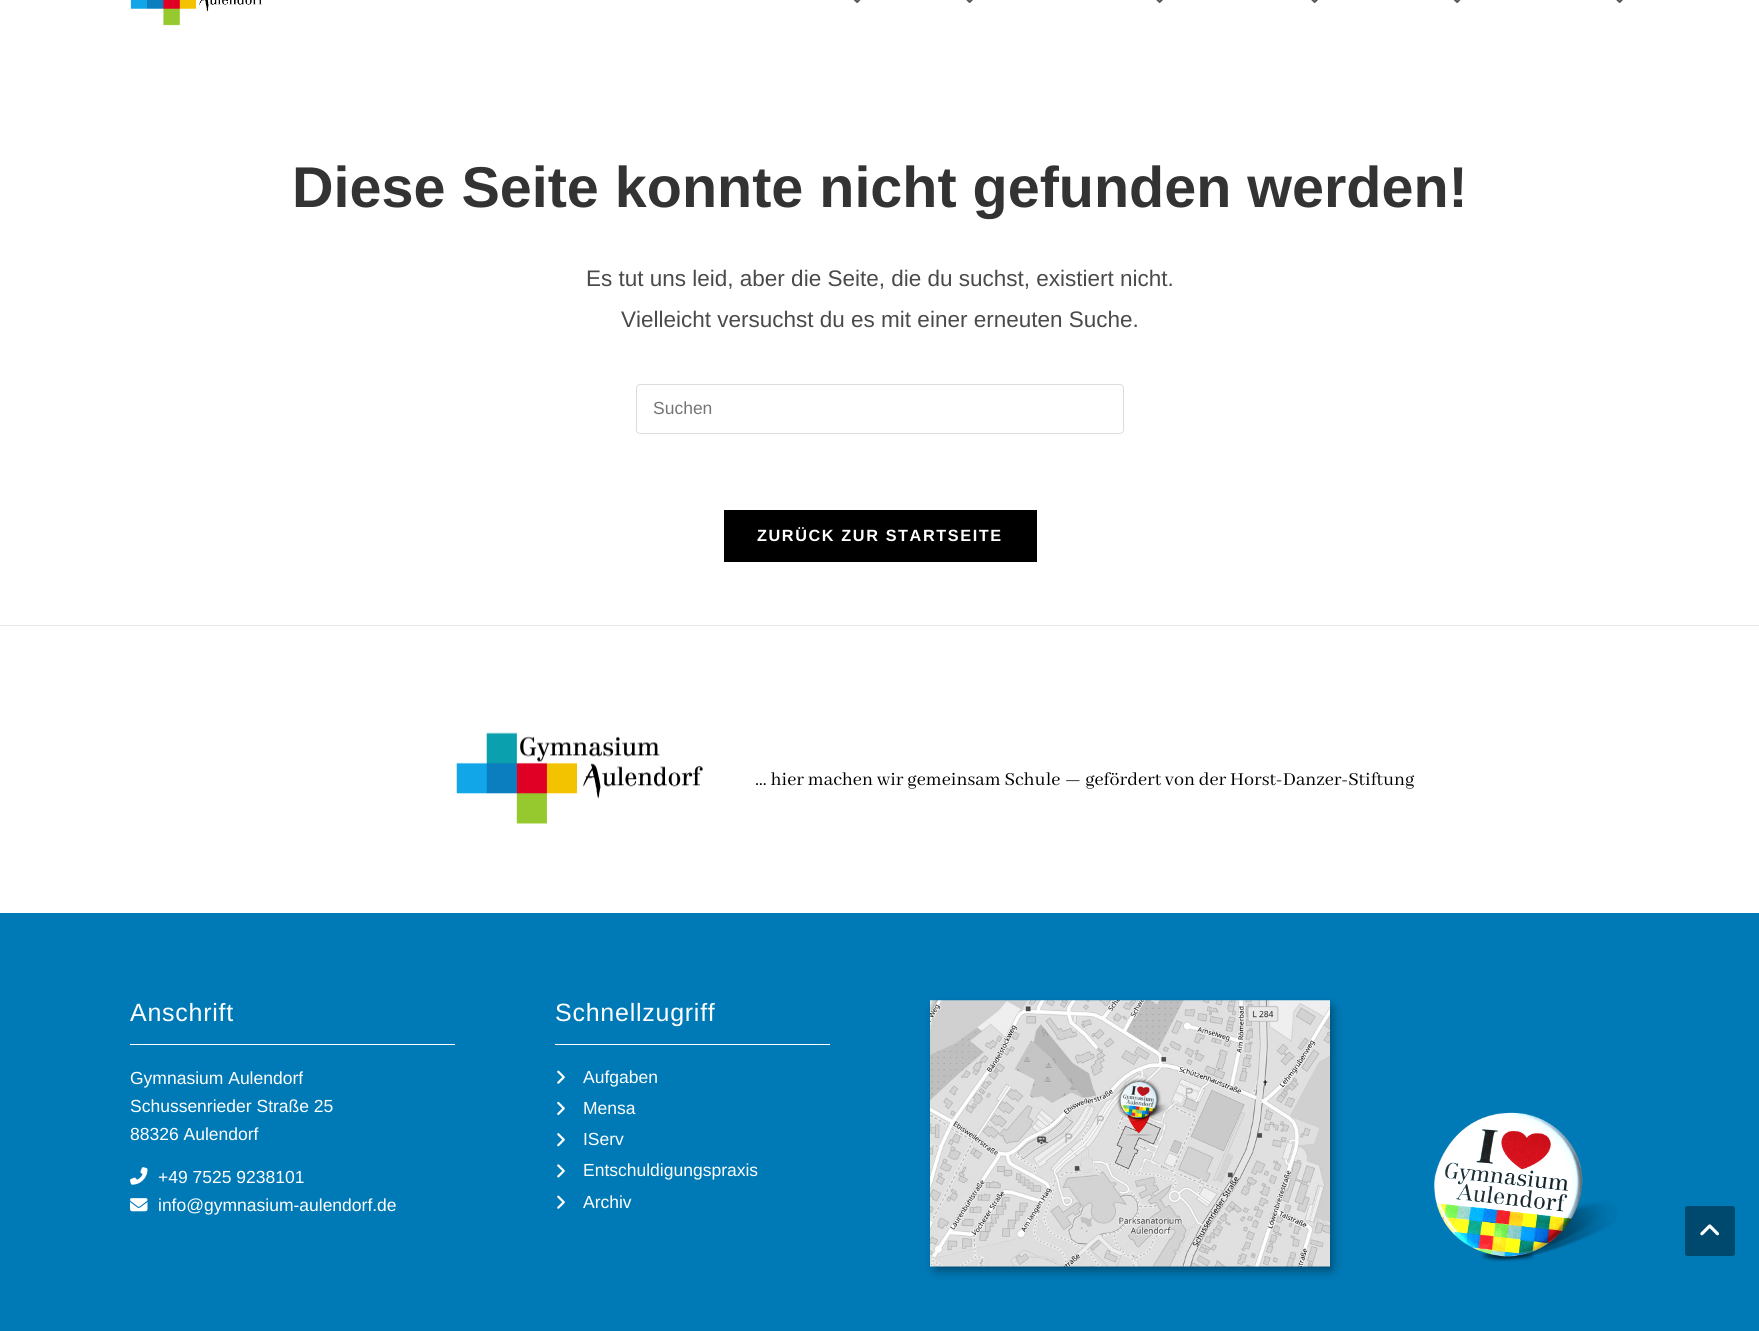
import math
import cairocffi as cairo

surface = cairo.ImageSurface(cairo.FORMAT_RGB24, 1759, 1331)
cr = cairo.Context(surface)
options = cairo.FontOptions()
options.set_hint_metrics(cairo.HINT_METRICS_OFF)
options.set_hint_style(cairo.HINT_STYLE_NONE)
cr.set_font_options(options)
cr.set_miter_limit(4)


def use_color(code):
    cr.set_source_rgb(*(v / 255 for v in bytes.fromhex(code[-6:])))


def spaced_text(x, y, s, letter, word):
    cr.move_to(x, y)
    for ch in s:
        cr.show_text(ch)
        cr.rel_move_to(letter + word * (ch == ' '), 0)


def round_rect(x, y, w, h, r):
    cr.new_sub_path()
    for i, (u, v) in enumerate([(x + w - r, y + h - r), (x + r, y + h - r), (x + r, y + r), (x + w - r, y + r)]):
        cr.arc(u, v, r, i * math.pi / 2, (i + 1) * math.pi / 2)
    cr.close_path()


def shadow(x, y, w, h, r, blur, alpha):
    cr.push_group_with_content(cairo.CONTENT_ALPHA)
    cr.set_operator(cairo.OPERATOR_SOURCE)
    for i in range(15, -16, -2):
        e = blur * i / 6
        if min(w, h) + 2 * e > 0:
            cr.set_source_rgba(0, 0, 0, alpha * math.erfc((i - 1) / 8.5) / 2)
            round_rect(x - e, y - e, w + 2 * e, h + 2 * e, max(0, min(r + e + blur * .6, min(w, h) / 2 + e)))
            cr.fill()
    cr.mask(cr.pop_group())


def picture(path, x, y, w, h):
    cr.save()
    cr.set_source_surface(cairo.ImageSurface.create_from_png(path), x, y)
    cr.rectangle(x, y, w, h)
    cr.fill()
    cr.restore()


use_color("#ffffff")
cr.paint()
picture("img1.png", 130, 0, 133, 26)
picture("img2.png", 853, 0, 8, 3)
picture("img3.png", 966, 0, 7, 3)
picture("img3.png", 1156, 0, 7, 3)
picture("img3.png", 1311, 0, 7, 3)
picture("img2.png", 1453, 0, 8, 3)
picture("img3.png", 1616, 0, 7, 3)
cr.select_font_face("Liberation Sans", cairo.FONT_SLANT_NORMAL, cairo.FONT_WEIGHT_BOLD)
cr.set_font_size(57.5)
use_color("#333333")
cr.move_to(292, 207)
cr.show_text("Diese Seite konnte nicht gefunden werden!")
cr.select_font_face("Liberation Sans")
cr.set_font_size(22.5)
use_color("#4a4a4a")
cr.move_to(586, 286)
cr.show_text("Es tut uns leid, aber die Seite, die du suchst, existiert nicht.")
cr.move_to(621, 327)
cr.show_text("Vielleicht versuchst du es mit einer erneuten Suche.")
round_rect(636.5, 384.5, 487, 49, 3.5)
use_color("#dddddd")
cr.set_line_width(1)
cr.stroke()
cr.set_font_size(17.5)
use_color("#757575")
cr.move_to(653, 414)
cr.show_text("Suchen")
use_color("#000000")
cr.rectangle(724, 510, 313, 52)
cr.fill()
cr.select_font_face("Liberation Sans", cairo.FONT_SLANT_NORMAL, cairo.FONT_WEIGHT_BOLD)
cr.set_font_size(16.25)
use_color("#ffffff")
spaced_text(757, 541, "ZURÜCK ZUR STARTSEITE", 1.6, 0)
use_color("#e7e7e7")
cr.rectangle(0, 625, 1759, 1)
cr.fill()
picture("img4.png", 456, 732, 247, 92)
cr.select_font_face("Abhaya Libre")
cr.set_font_size(20)
use_color("#000000")
cr.move_to(755, 785)
cr.show_text("… hier machen wir gemeinsam Schule — gefördert von der Horst-Danzer-Stiftung")
use_color("#007ab7")
cr.rectangle(0, 913, 1759, 418)
cr.fill()
cr.select_font_face("Liberation Sans")
cr.set_font_size(25)
use_color("#ffffff")
spaced_text(130, 1021, "Anschrift", 0.75, 0)
cr.rectangle(130, 1044, 325, 1)
cr.fill()
cr.set_font_size(17.5)
cr.move_to(130, 1084)
cr.show_text("Gymnasium Aulendorf")
cr.move_to(130, 1112)
cr.show_text("Schussenrieder Straße 25")
cr.move_to(130, 1140)
cr.show_text("88326 Aulendorf")
picture("img5.png", 130, 1167, 18, 18)
cr.move_to(158, 1183)
cr.show_text("+49 7525 9238101")
picture("img6.png", 130, 1198, 18, 14)
cr.move_to(158, 1211)
cr.show_text("info@gymnasium-aulendorf.de")
cr.set_font_size(25)
spaced_text(555, 1021, "Schnellzugriff", 0.75, 0)
cr.rectangle(555, 1044, 275, 1)
cr.fill()
picture("img7.png", 557, 1070, 8, 14)
cr.set_font_size(17.5)
cr.move_to(583, 1083)
cr.show_text("Aufgaben")
picture("img8.png", 557, 1101, 8, 14)
cr.move_to(583, 1114)
cr.show_text("Mensa")
picture("img9.png", 557, 1133, 8, 14)
cr.move_to(583, 1145)
cr.show_text("IServ")
picture("img10.png", 557, 1164, 8, 14)
cr.move_to(583, 1176)
cr.show_text("Entschuldigungspraxis")
picture("img7.png", 557, 1195, 8, 14)
cr.move_to(583, 1208)
cr.show_text("Archiv")
use_color("#000000")
shadow(936, 1008, 395, 261, 0, 6, 0.5)
picture("img11.png", 930, 1000, 400, 267)
picture("img12.png", 1434, 1112, 184, 150)
use_color("#00496e")
round_rect(1685, 1206, 50, 50, 2.5)
cr.fill()
picture("img13.png", 1700, 1224, 19, 12)
surface.write_to_png("result.png")
